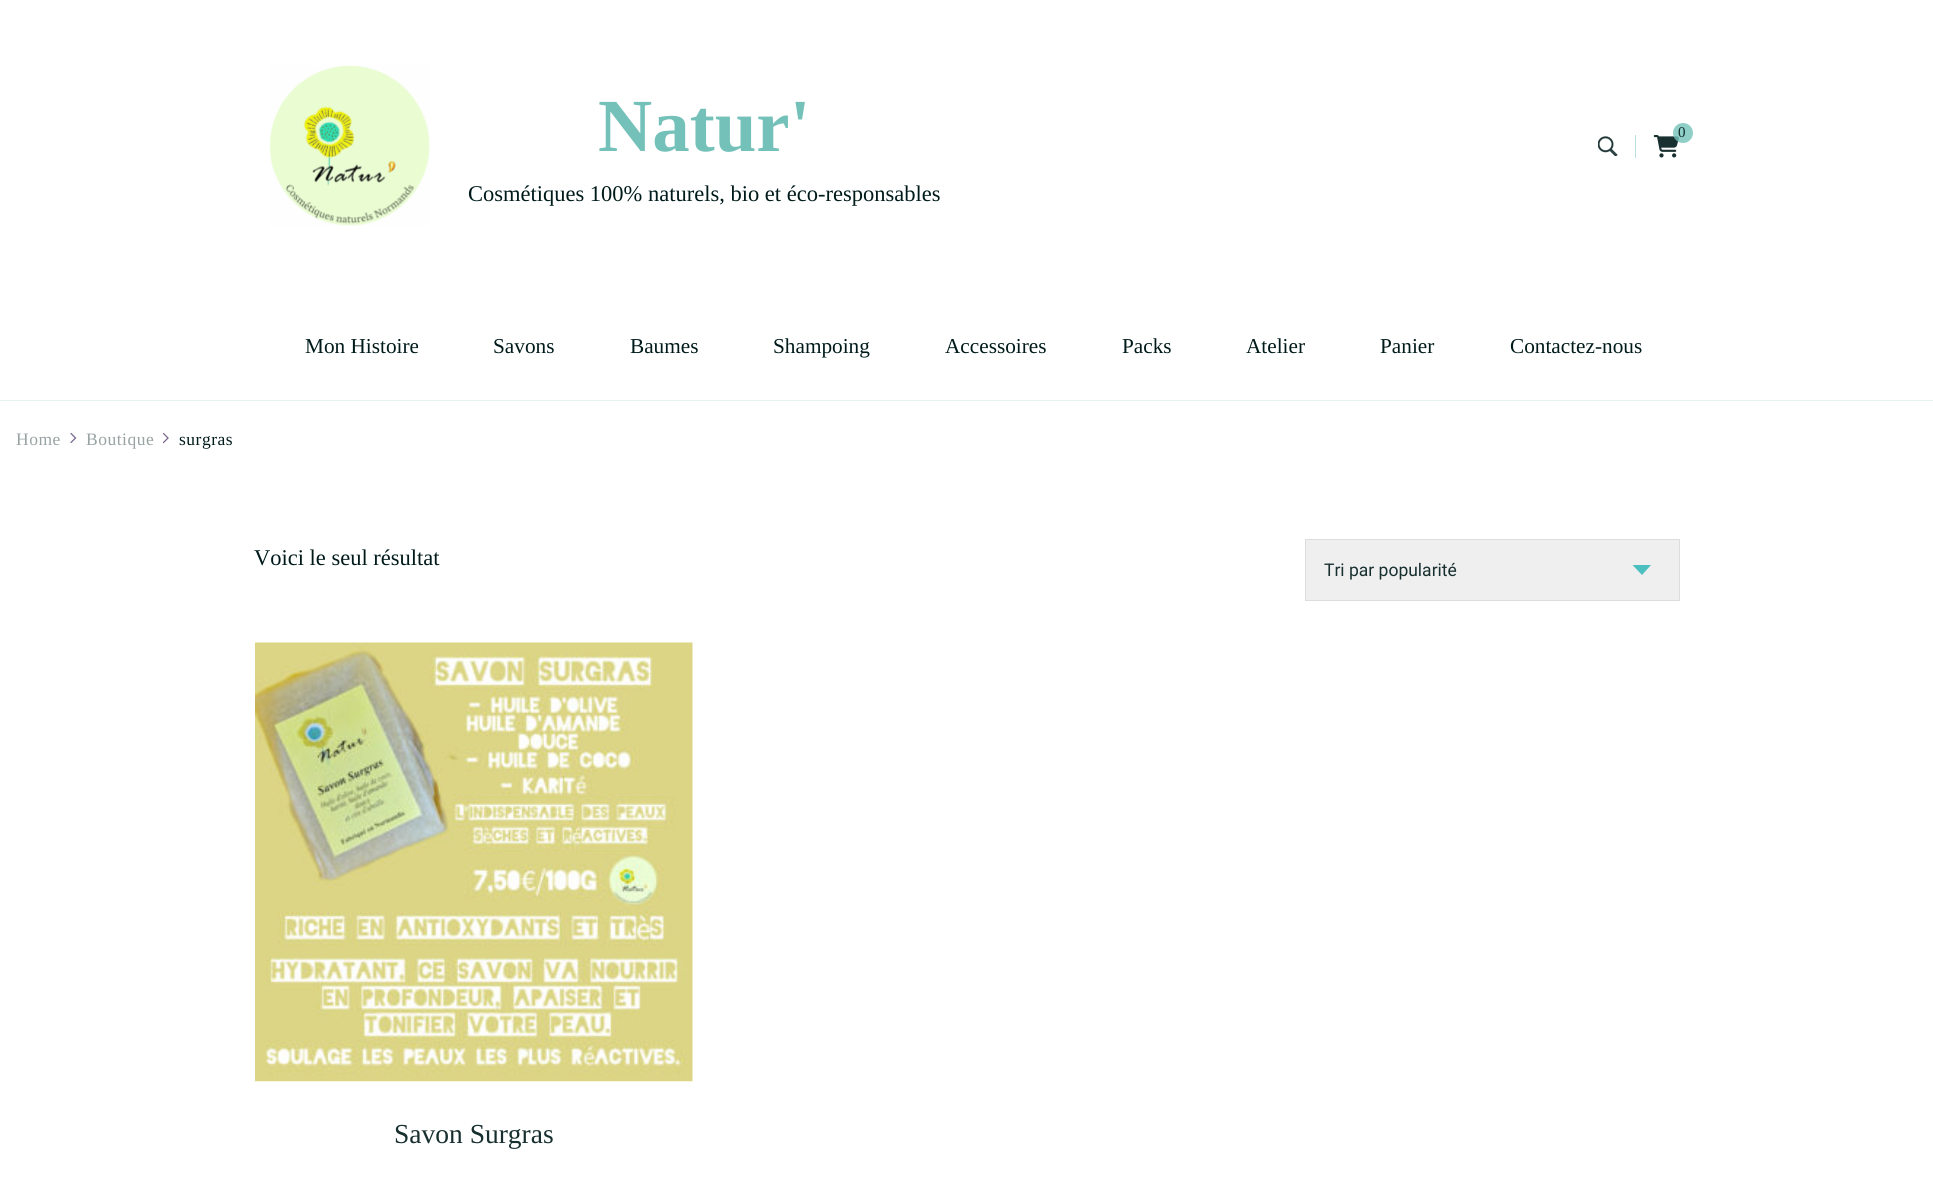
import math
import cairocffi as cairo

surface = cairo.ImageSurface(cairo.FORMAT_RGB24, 1933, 1186)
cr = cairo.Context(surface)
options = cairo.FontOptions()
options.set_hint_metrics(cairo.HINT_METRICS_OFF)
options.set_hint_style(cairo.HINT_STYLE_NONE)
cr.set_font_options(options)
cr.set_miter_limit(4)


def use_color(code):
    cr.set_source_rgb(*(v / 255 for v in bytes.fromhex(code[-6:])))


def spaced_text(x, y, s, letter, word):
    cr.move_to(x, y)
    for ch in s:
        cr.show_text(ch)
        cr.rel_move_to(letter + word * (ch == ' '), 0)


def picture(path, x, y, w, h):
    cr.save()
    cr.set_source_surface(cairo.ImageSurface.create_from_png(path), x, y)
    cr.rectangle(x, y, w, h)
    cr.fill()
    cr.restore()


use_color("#ffffff")
cr.paint()
picture("img1.png", 270, 65, 160, 161)
cr.select_font_face("Liberation Serif", cairo.FONT_SLANT_NORMAL, cairo.FONT_WEIGHT_BOLD)
cr.set_font_size(75)
use_color("#74c1ba")
cr.move_to(598, 151)
cr.show_text("Natur'")
cr.select_font_face("Liberation Serif")
cr.set_font_size(22.5)
use_color("#001a1a")
cr.move_to(468, 201)
cr.show_text("Cosmétiques 100% naturels, bio et éco-responsables")
use_color("#bae0dd")
cr.rectangle(1635, 135, 1, 23)
cr.fill()
picture("img2.png", 1653, 135, 26, 23)
cr.set_source_rgba(0.455, 0.757, 0.729, 0.8)
cr.arc(1683, 133, 10, 0, 2 * math.pi)
cr.fill()
cr.set_font_size(15)
use_color("#0e2c2b")
cr.move_to(1678, 137)
cr.show_text("0")
picture("img3.png", 1598, 136, 20, 20)
use_color("#e3f3f1")
cr.rectangle(0, 400, 1933, 1)
cr.fill()
cr.set_font_size(21.25)
use_color("#001a1a")
cr.move_to(305, 353)
cr.show_text("Mon Histoire")
cr.move_to(493, 353)
cr.show_text("Savons")
cr.move_to(630, 353)
cr.show_text("Baumes")
cr.move_to(773, 353)
cr.show_text("Shampoing")
cr.move_to(945, 353)
cr.show_text("Accessoires")
cr.move_to(1122, 353)
cr.show_text("Packs")
cr.move_to(1246, 353)
cr.show_text("Atelier")
cr.move_to(1380, 353)
cr.show_text("Panier")
cr.move_to(1510, 353)
cr.show_text("Contactez-nous")
cr.set_font_size(17.5)
use_color("#99a3a3")
spaced_text(16, 445, "Home", 0.5, 0)
cr.new_path()
cr.move_to(71, 433.5)
cr.line_to(75.5, 438)
cr.line_to(71, 442.5)
use_color("#7d6a91")
cr.set_line_width(1.3)
cr.set_line_cap(cairo.LINE_CAP_ROUND)
cr.stroke()
use_color("#99a3a3")
spaced_text(86, 445, "Boutique", 0.5, 0)
cr.save()
cr.rectangle(163, 433, 6, 11)
cr.clip()
cr.new_path()
cr.move_to(163.5, 433.5)
cr.line_to(168, 438)
cr.line_to(163.5, 442.5)
use_color("#7d6a91")
cr.stroke()
cr.restore()
use_color("#001a1a")
spaced_text(179, 445, "surgras", 0.5, 0)
cr.set_font_size(22.5)
cr.move_to(254, 565)
cr.show_text("Voici le seul résultat")
use_color("#efefef")
cr.rectangle(1306, 540, 373, 60)
cr.fill()
use_color("#4cbfbf")
cr.new_path()
cr.move_to(1642, 575)
cr.line_to(1632.5, 565)
cr.line_to(1651, 565)
cr.close_path()
cr.fill()
cr.rectangle(1305.5, 539.5, 374, 61)
use_color("#dcdede")
cr.set_line_width(1)
cr.set_line_cap(cairo.LINE_CAP_BUTT)
cr.stroke()
cr.select_font_face("Roboto")
cr.set_font_size(17.5)
use_color("#182f2f")
cr.move_to(1324, 576)
cr.show_text("Tri par popularité")
picture("img4.png", 255, 642, 438, 440)
cr.select_font_face("Liberation Serif")
cr.set_font_size(27.5)
cr.move_to(394, 1143)
cr.show_text("Savon Surgras")
surface.write_to_png("result.png")
